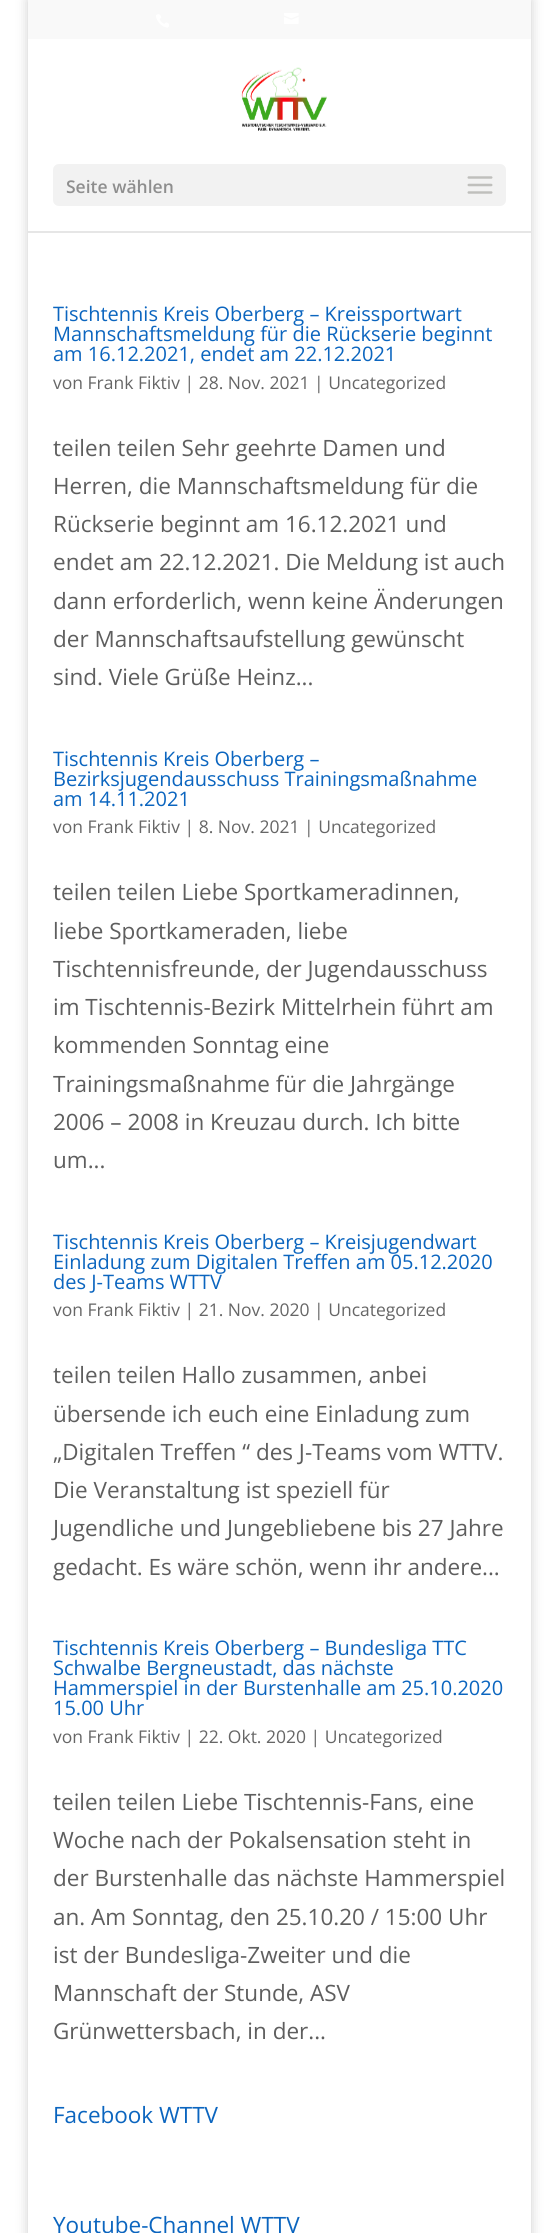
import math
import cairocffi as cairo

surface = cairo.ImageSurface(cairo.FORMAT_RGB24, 558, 2233)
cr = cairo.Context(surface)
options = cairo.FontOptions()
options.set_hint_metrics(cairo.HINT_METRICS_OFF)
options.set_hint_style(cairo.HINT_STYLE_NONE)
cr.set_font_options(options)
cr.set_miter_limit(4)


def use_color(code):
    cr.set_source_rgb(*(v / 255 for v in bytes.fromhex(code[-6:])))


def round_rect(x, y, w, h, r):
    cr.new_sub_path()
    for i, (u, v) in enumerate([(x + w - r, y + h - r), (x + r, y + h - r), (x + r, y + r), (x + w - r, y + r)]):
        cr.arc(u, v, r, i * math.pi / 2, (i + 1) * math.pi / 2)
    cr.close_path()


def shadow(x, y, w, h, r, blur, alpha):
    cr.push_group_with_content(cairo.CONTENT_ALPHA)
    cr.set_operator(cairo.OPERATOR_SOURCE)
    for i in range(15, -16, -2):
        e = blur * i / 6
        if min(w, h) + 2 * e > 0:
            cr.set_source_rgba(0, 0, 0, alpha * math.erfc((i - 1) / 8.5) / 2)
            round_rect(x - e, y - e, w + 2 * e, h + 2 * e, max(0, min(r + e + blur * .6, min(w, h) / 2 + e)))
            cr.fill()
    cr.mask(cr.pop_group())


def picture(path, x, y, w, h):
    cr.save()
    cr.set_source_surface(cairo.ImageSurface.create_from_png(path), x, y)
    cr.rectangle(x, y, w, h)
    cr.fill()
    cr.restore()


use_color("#ffffff")
cr.paint()
cr.save()
cr.set_fill_rule(cairo.FILL_RULE_EVEN_ODD)
cr.new_path()
cr.move_to(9, 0)
cr.line_to(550, 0)
cr.line_to(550, 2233)
cr.line_to(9, 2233)
cr.close_path()
cr.move_to(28, 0)
cr.line_to(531, 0)
cr.line_to(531, 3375)
cr.line_to(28, 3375)
cr.close_path()
cr.clip()
use_color("#000000")
shadow(28, 0, 503, 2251, 0, 6, 0.2)
cr.restore()
use_color("#f9f9f9")
cr.rectangle(28, 0, 503, 39)
cr.fill()
picture("img1.png", 156, 14, 13, 14)
picture("img2.png", 284, 13, 15, 11)
use_color("#e6e6e6")
cr.rectangle(28, 231, 503, 2)
cr.fill()
picture("img3.png", 241, 67, 86, 64)
use_color("#f2f2f2")
round_rect(53, 164, 453, 42, 6)
cr.fill()
cr.select_font_face("Open Sans SemiBold")
cr.set_font_size(17.5)
use_color("#8e8e8e")
cr.move_to(66, 193)
cr.show_text("Seite wählen")
picture("img4.png", 467, 176, 26, 18)
cr.select_font_face("Open Sans")
cr.set_font_size(20)
use_color("#0b65bf")
cr.move_to(53, 321)
cr.show_text("Tischtennis Kreis Oberberg – Kreissportwart")
cr.move_to(53, 341)
cr.show_text("Mannschaftsmeldung für die Rückserie beginnt")
cr.move_to(53, 361)
cr.show_text("am 16.12.2021, endet am 22.12.2021")
cr.set_font_size(17.5)
use_color("#666666")
cr.move_to(53, 389)
cr.show_text("von Frank Fiktiv | 28. Nov. 2021 | Uncategorized")
cr.set_font_size(22.5)
use_color("#5e5e5e")
cr.move_to(53, 456)
cr.show_text("teilen teilen Sehr geehrte Damen und")
cr.move_to(53, 494)
cr.show_text("Herren, die Mannschaftsmeldung für die")
cr.move_to(53, 532)
cr.show_text("Rückserie beginnt am 16.12.2021 und")
cr.move_to(53, 570)
cr.show_text("endet am 22.12.2021. Die Meldung ist auch")
cr.move_to(53, 609)
cr.show_text("dann erforderlich, wenn keine Änderungen")
cr.move_to(53, 647)
cr.show_text("der Mannschaftsaufstellung gewünscht")
cr.move_to(53, 685)
cr.show_text("sind. Viele Grüße Heinz...")
cr.set_font_size(20)
use_color("#0b65bf")
cr.move_to(53, 766)
cr.show_text("Tischtennis Kreis Oberberg –")
cr.move_to(53, 786)
cr.show_text("Bezirksjugendausschuss Trainingsmaßnahme")
cr.move_to(53, 806)
cr.show_text("am 14.11.2021")
cr.set_font_size(17.5)
use_color("#666666")
cr.move_to(53, 833)
cr.show_text("von Frank Fiktiv | 8. Nov. 2021 | Uncategorized")
cr.set_font_size(22.5)
use_color("#5e5e5e")
cr.move_to(53, 900)
cr.show_text("teilen teilen Liebe Sportkameradinnen,")
cr.move_to(53, 939)
cr.show_text("liebe Sportkameraden, liebe")
cr.move_to(53, 977)
cr.show_text("Tischtennisfreunde, der Jugendausschuss")
cr.move_to(53, 1015)
cr.show_text("im Tischtennis-Bezirk Mittelrhein führt am")
cr.move_to(53, 1053)
cr.show_text("kommenden Sonntag eine")
cr.move_to(53, 1092)
cr.show_text("Trainingsmaßnahme für die Jahrgänge")
cr.move_to(53, 1130)
cr.show_text("2006 – 2008 in Kreuzau durch. Ich bitte")
cr.move_to(53, 1168)
cr.show_text("um...")
cr.set_font_size(20)
use_color("#0b65bf")
cr.move_to(53, 1249)
cr.show_text("Tischtennis Kreis Oberberg – Kreisjugendwart")
cr.move_to(53, 1269)
cr.show_text("Einladung zum Digitalen Treffen am 05.12.2020")
cr.move_to(53, 1289)
cr.show_text("des J-Teams WTTV")
cr.set_font_size(17.5)
use_color("#666666")
cr.move_to(53, 1316)
cr.show_text("von Frank Fiktiv | 21. Nov. 2020 | Uncategorized")
cr.set_font_size(22.5)
use_color("#5e5e5e")
cr.move_to(53, 1383)
cr.show_text("teilen teilen Hallo zusammen, anbei")
cr.move_to(53, 1422)
cr.show_text("übersende ich euch eine Einladung zum")
cr.move_to(53, 1460)
cr.show_text("„Digitalen Treffen “ des J-Teams vom WTTV.")
cr.move_to(53, 1498)
cr.show_text("Die Veranstaltung ist speziell für")
cr.move_to(53, 1536)
cr.show_text("Jugendliche und Jungebliebene bis 27 Jahre")
cr.move_to(53, 1575)
cr.show_text("gedacht. Es wäre schön, wenn ihr andere...")
cr.set_font_size(20)
use_color("#0b65bf")
cr.move_to(53, 1655)
cr.show_text("Tischtennis Kreis Oberberg – Bundesliga TTC")
cr.move_to(53, 1675)
cr.show_text("Schwalbe Bergneustadt, das nächste")
cr.move_to(53, 1695)
cr.show_text("Hammerspiel in der Burstenhalle am 25.10.2020")
cr.move_to(53, 1715)
cr.show_text("15.00 Uhr")
cr.set_font_size(17.5)
use_color("#666666")
cr.move_to(53, 1743)
cr.show_text("von Frank Fiktiv | 22. Okt. 2020 | Uncategorized")
cr.set_font_size(22.5)
use_color("#5e5e5e")
cr.move_to(53, 1810)
cr.show_text("teilen teilen Liebe Tischtennis-Fans, eine")
cr.move_to(53, 1848)
cr.show_text("Woche nach der Pokalsensation steht in")
cr.move_to(53, 1886)
cr.show_text("der Burstenhalle das nächste Hammerspiel")
cr.move_to(53, 1925)
cr.show_text("an. Am Sonntag, den 25.10.20 / 15:00 Uhr")
cr.move_to(53, 1963)
cr.show_text("ist der Bundesliga-Zweiter und die")
cr.move_to(53, 2001)
cr.show_text("Mannschaft der Stunde, ASV")
cr.move_to(53, 2039)
cr.show_text("Grünwettersbach, in der...")
use_color("#0b65bf")
cr.move_to(53, 2123)
cr.show_text("Facebook WTTV")
cr.move_to(53, 2233)
cr.show_text("Youtube-Channel WTTV")
surface.write_to_png("result.png")
